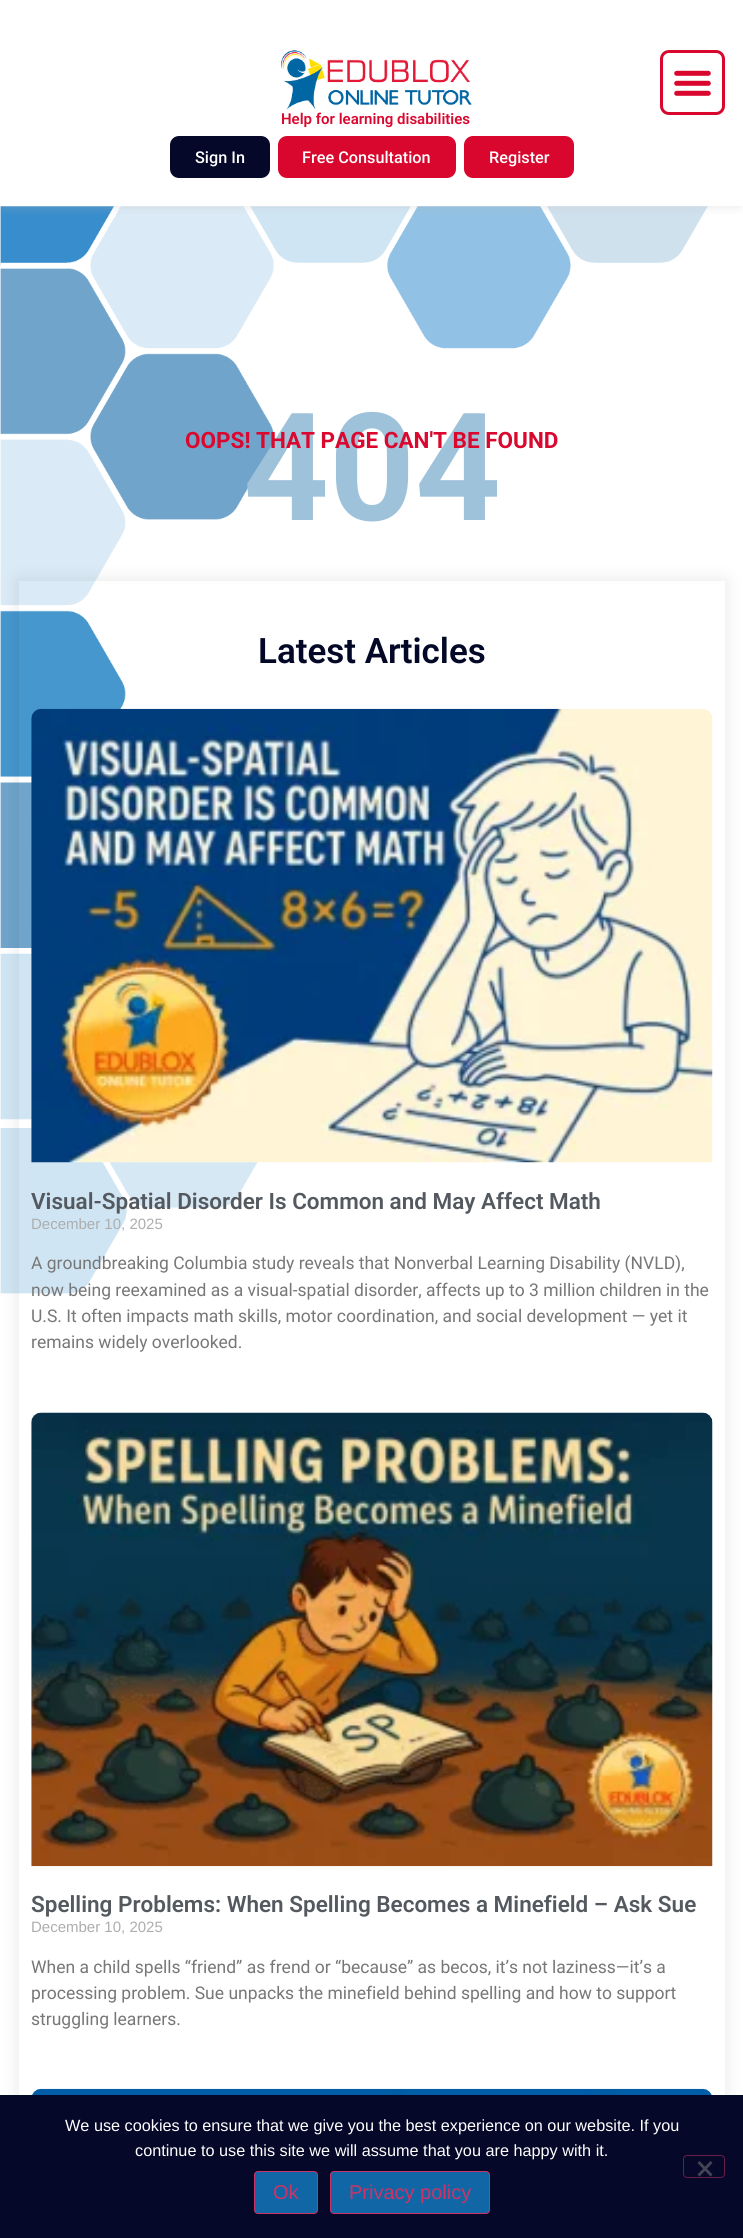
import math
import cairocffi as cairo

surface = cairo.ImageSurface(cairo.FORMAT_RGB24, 743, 2238)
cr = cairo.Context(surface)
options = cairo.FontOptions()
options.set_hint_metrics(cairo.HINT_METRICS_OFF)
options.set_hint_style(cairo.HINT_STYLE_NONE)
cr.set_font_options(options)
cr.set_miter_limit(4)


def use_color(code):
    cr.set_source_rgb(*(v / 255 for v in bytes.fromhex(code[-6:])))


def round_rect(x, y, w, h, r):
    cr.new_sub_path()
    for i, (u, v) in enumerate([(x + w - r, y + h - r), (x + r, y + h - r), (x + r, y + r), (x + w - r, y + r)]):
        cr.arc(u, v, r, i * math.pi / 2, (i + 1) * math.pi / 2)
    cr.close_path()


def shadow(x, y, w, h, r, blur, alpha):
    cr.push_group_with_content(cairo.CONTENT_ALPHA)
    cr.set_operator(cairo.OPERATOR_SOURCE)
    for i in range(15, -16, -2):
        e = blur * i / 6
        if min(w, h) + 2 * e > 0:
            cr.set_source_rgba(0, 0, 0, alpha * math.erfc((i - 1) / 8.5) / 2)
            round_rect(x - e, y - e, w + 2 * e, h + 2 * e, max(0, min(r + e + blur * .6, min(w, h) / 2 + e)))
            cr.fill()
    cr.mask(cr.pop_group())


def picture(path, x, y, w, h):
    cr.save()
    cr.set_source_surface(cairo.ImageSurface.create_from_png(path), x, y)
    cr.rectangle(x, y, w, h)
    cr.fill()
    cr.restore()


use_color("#ffffff")
cr.paint()
picture("img3.png", 0, 206, 708, 1088)
cr.save()
cr.rectangle(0, 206, 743, 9)
cr.clip()
use_color("#bbbbbb")
shadow(6, 6, 732, 194, 0, 7.5, 1)
cr.restore()
round_rect(661.5, 51.5, 62, 62, 7.5)
use_color("#d9072d")
cr.set_line_width(3)
cr.stroke()
picture("img1.png", 674, 70, 37, 26)
picture("img2.png", 281, 50, 191, 60)
cr.select_font_face("Roboto SemiBold")
cr.set_font_size(15)
use_color("#da072e")
cr.move_to(281, 124)
cr.show_text("Help for learning disabilities")
use_color("#050828")
round_rect(170, 136, 100, 42, 9)
cr.fill()
cr.select_font_face("Roboto Medium")
cr.set_font_size(16.25)
use_color("#ffffff")
cr.move_to(195, 163)
cr.show_text("Sign In")
use_color("#d9072d")
round_rect(278, 136, 178, 42, 9)
cr.fill()
use_color("#ffffff")
cr.move_to(302, 163)
cr.show_text("Free Consultation")
use_color("#d9072d")
round_rect(464, 136, 110, 42, 9)
cr.fill()
use_color("#ffffff")
cr.move_to(489, 163)
cr.show_text("Register")
cr.select_font_face("Roboto", cairo.FONT_SLANT_NORMAL, cairo.FONT_WEIGHT_BOLD)
cr.set_font_size(150)
use_color("#9fc2db")
cr.move_to(243, 520)
cr.show_text("404")
cr.set_font_size(22.5)
use_color("#da072e")
cr.move_to(185, 448)
cr.show_text("OOPS! THAT PAGE CAN'T BE FOUND")
cr.save()
cr.set_fill_rule(cairo.FILL_RULE_EVEN_ODD)
cr.new_path()
cr.move_to(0, 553)
cr.line_to(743, 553)
cr.line_to(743, 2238)
cr.line_to(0, 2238)
cr.close_path()
cr.move_to(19, 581)
cr.line_to(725, 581)
cr.line_to(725, 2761)
cr.line_to(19, 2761)
cr.close_path()
cr.clip()
use_color("#000000")
shadow(19, 581, 706, 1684, 0, 9, 0.1)
cr.restore()
cr.select_font_face("Roboto SemiBold")
cr.set_font_size(35)
use_color("#040827")
cr.move_to(258, 663)
cr.show_text("Latest Articles")
picture("img4.png", 31, 708, 682, 455)
cr.set_font_size(22.5)
use_color("#54595f")
cr.move_to(31, 1209)
cr.show_text("Visual-Spatial Disorder Is Common and May Affect Math")
cr.select_font_face("Liberation Sans")
cr.set_font_size(15)
use_color("#adadad")
cr.move_to(31, 1229)
cr.show_text("December 10, 2025")
cr.select_font_face("Roboto")
cr.set_font_size(17.5)
use_color("#777777")
cr.move_to(31, 1269)
cr.show_text("A groundbreaking Columbia study reveals that Nonverbal Learning Disability (NVLD),")
cr.move_to(31, 1296)
cr.show_text("now being reexamined as a visual-spatial disorder, affects up to 3 million children in the")
cr.move_to(31, 1322)
cr.show_text("U.S. It often impacts math skills, motor coordination, and social development — yet it")
cr.move_to(31, 1348)
cr.show_text("remains widely overlooked.")
picture("img5.png", 31, 1412, 682, 455)
cr.select_font_face("Roboto SemiBold")
cr.set_font_size(22.5)
use_color("#54595f")
cr.move_to(31, 1912)
cr.show_text("Spelling Problems: When Spelling Becomes a Minefield – Ask Sue")
cr.select_font_face("Liberation Sans")
cr.set_font_size(15)
use_color("#adadad")
cr.move_to(31, 1932)
cr.show_text("December 10, 2025")
cr.select_font_face("Roboto")
cr.set_font_size(17.5)
use_color("#777777")
cr.move_to(31, 1973)
cr.show_text("When a child spells “friend” as frend or “because” as becos, it’s not laziness—it’s a")
cr.move_to(31, 1999)
cr.show_text("processing problem. Sue unpacks the minefield behind spelling and how to support")
cr.move_to(31, 2025)
cr.show_text("struggling learners.")
picture("img6.png", 32, 2088, 680, 7)
use_color("#050828")
cr.rectangle(0, 2095, 743, 143)
cr.fill()
cr.select_font_face("Liberation Sans")
cr.set_font_size(16.25)
use_color("#ffffff")
cr.move_to(65, 2131)
cr.show_text("We use cookies to ensure that we give you the best experience on our website. If you")
cr.move_to(135, 2156)
cr.show_text("continue to use this site we will assume that you are happy with it.")
round_rect(683.5, 2155.5, 41, 22, 3.5)
use_color("#691e47")
cr.set_line_width(1)
cr.stroke()
use_color("#434454")
cr.new_path()
cr.move_to(710.5, 2161)
cr.line_to(712.5, 2163)
cr.line_to(699.5, 2176.5)
cr.line_to(697.5, 2174.5)
cr.close_path()
cr.fill()
cr.new_path()
cr.move_to(697.5, 2163)
cr.line_to(699.5, 2161)
cr.line_to(712.5, 2174.5)
cr.line_to(710.5, 2176.5)
cr.close_path()
cr.fill()
use_color("#1167a6")
round_rect(254.5, 2171.5, 63, 42, 3.5)
cr.fill_preserve()
use_color("#cc3366")
cr.stroke()
cr.set_font_size(20)
cr.move_to(273, 2199)
cr.show_text("Ok")
use_color("#1167a6")
round_rect(330.5, 2171.5, 159, 42, 3.5)
cr.fill_preserve()
use_color("#cc3366")
cr.stroke()
cr.move_to(349, 2199)
cr.show_text("Privacy policy")
surface.write_to_png("result.png")
